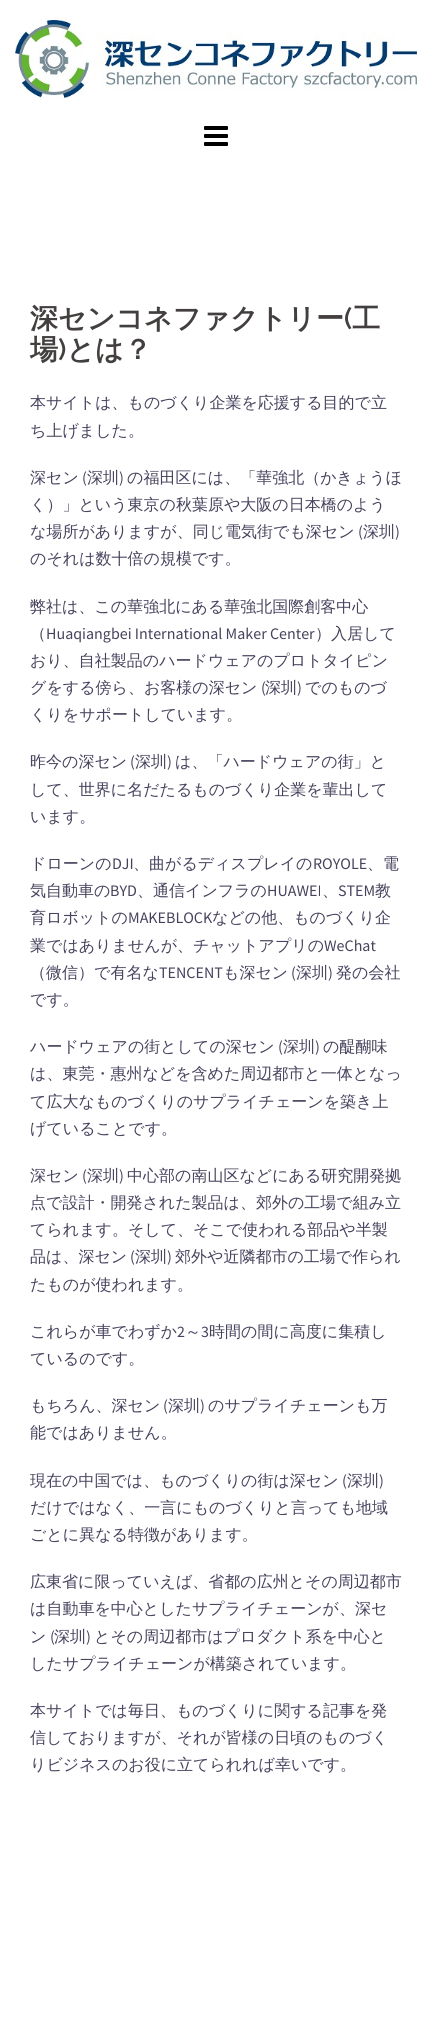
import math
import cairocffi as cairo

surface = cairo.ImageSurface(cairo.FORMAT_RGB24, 432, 2019)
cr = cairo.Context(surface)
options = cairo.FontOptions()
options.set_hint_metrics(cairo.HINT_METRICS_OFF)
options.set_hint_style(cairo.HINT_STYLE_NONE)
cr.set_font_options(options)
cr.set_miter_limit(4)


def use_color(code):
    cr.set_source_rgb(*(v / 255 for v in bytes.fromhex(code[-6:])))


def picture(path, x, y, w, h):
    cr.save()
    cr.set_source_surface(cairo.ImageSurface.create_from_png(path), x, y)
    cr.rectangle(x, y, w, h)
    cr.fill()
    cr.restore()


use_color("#ffffff")
cr.paint()
picture("img1.png", 15, 20, 402, 78)
picture("img2.png", 204, 126, 24, 20)
cr.select_font_face("WenQuanYi Zen Hei", cairo.FONT_SLANT_NORMAL, cairo.FONT_WEIGHT_BOLD)
cr.set_font_size(28)
use_color("#443f3f")
cr.move_to(30, 328)
cr.show_text("深センコネファクトリー 工")
cr.select_font_face("Raleway SemiBold")
cr.move_to(344, 328)
cr.show_text("(")
cr.select_font_face("WenQuanYi Zen Hei", cairo.FONT_SLANT_NORMAL, cairo.FONT_WEIGHT_BOLD)
cr.move_to(30, 359)
cr.show_text("場 とは？")
cr.select_font_face("Raleway SemiBold")
cr.move_to(58, 359)
cr.show_text(")")
cr.select_font_face("WenQuanYi Zen Hei Medium")
cr.set_font_size(16)
use_color("#47425d")
cr.move_to(30, 408)
cr.show_text("本サイトは、ものづくり企業を応援する目的で立")
cr.move_to(30, 436)
cr.show_text("ち上げました。")
cr.move_to(30, 483)
cr.show_text("深セン")
cr.select_font_face("Source Sans Pro")
cr.move_to(82, 483)
cr.show_text("(")
cr.select_font_face("WenQuanYi Zen Hei Medium")
cr.move_to(87, 483)
cr.show_text("深圳")
cr.select_font_face("Source Sans Pro")
cr.move_to(119, 483)
cr.show_text(")")
cr.select_font_face("WenQuanYi Zen Hei Medium")
cr.move_to(127, 483)
cr.show_text("の福田区には、「華強北（かきょうほ")
cr.move_to(30, 510)
cr.show_text("く）」という東京の秋葉原や大阪の日本橋のよう")
cr.move_to(30, 537)
cr.show_text("な場所がありますが、同じ電気街でも深セン")
cr.select_font_face("Source Sans Pro")
cr.move_to(358, 537)
cr.show_text("(")
cr.select_font_face("WenQuanYi Zen Hei Medium")
cr.move_to(363, 537)
cr.show_text("深圳")
cr.select_font_face("Source Sans Pro")
cr.move_to(395, 537)
cr.show_text(")")
cr.select_font_face("WenQuanYi Zen Hei Medium")
cr.move_to(30, 564)
cr.show_text("のそれは数十倍の規模です。")
cr.move_to(30, 612)
cr.show_text("弊社は、この華強北にある華強北国際創客中心")
cr.move_to(30, 639)
cr.show_text("（")
cr.select_font_face("Source Sans Pro")
cr.move_to(46, 639)
cr.show_text("Huaqiangbei International Maker Center")
cr.select_font_face("WenQuanYi Zen Hei Medium")
cr.move_to(315, 639)
cr.show_text("）入居して")
cr.move_to(30, 666)
cr.show_text("おり、自社製品のハードウェアのプロトタイピン")
cr.move_to(30, 693)
cr.show_text("グをする傍ら、お客様の深セン")
cr.select_font_face("Source Sans Pro")
cr.move_to(261, 693)
cr.show_text("(")
cr.select_font_face("WenQuanYi Zen Hei Medium")
cr.move_to(265, 693)
cr.show_text("深圳")
cr.select_font_face("Source Sans Pro")
cr.move_to(297, 693)
cr.show_text(")")
cr.select_font_face("WenQuanYi Zen Hei Medium")
cr.move_to(305, 693)
cr.show_text("でのものづ")
cr.move_to(30, 720)
cr.show_text("くりをサポートしています。")
cr.move_to(30, 767)
cr.show_text("昨今の深セン")
cr.select_font_face("Source Sans Pro")
cr.move_to(130, 767)
cr.show_text("(")
cr.select_font_face("WenQuanYi Zen Hei Medium")
cr.move_to(135, 767)
cr.show_text("深圳")
cr.select_font_face("Source Sans Pro")
cr.move_to(167, 767)
cr.show_text(")")
cr.select_font_face("WenQuanYi Zen Hei Medium")
cr.move_to(175, 767)
cr.show_text("は、「ハードウェアの街」と")
cr.move_to(30, 795)
cr.show_text("して、世界に名だたるものづくり企業を輩出して")
cr.move_to(30, 822)
cr.show_text("います。")
cr.move_to(30, 869)
cr.show_text("ドローンの")
cr.select_font_face("Source Sans Pro")
cr.move_to(112, 869)
cr.show_text("DJI")
cr.select_font_face("WenQuanYi Zen Hei Medium")
cr.move_to(133, 869)
cr.show_text("、曲がるディスプレイの")
cr.select_font_face("Source Sans Pro")
cr.move_to(313, 869)
cr.show_text("ROYOLE")
cr.select_font_face("WenQuanYi Zen Hei Medium")
cr.move_to(367, 869)
cr.show_text("、電")
cr.move_to(30, 896)
cr.show_text("気自動車の")
cr.select_font_face("Source Sans Pro")
cr.move_to(110, 896)
cr.show_text("BYD")
cr.select_font_face("WenQuanYi Zen Hei Medium")
cr.move_to(137, 896)
cr.show_text("、通信インフラの")
cr.select_font_face("Source Sans Pro")
cr.move_to(267, 896)
cr.show_text("HUAWEI")
cr.select_font_face("WenQuanYi Zen Hei Medium")
cr.move_to(322, 896)
cr.show_text("、")
cr.select_font_face("Source Sans Pro")
cr.move_to(338, 896)
cr.show_text("STEM")
cr.select_font_face("WenQuanYi Zen Hei Medium")
cr.move_to(375, 896)
cr.show_text("教")
cr.move_to(30, 923)
cr.show_text("育ロボットの")
cr.select_font_face("Source Sans Pro")
cr.move_to(128, 923)
cr.show_text("MAKEBLOCK")
cr.select_font_face("WenQuanYi Zen Hei Medium")
cr.move_to(212, 923)
cr.show_text("などの他、ものづくり企")
cr.move_to(30, 951)
cr.show_text("業ではありませんが、チャットアプリの")
cr.select_font_face("Source Sans Pro")
cr.move_to(324, 951)
cr.show_text("WeChat")
cr.select_font_face("WenQuanYi Zen Hei Medium")
cr.move_to(30, 978)
cr.show_text("（微信）で有名な")
cr.select_font_face("Source Sans Pro")
cr.move_to(159, 978)
cr.show_text("TENCENT")
cr.select_font_face("WenQuanYi Zen Hei Medium")
cr.move_to(223, 978)
cr.show_text("も深セン")
cr.select_font_face("Source Sans Pro")
cr.move_to(291, 978)
cr.show_text("(")
cr.select_font_face("WenQuanYi Zen Hei Medium")
cr.move_to(296, 978)
cr.show_text("深圳")
cr.select_font_face("Source Sans Pro")
cr.move_to(328, 978)
cr.show_text(")")
cr.select_font_face("WenQuanYi Zen Hei Medium")
cr.move_to(336, 978)
cr.show_text("発の会社")
cr.move_to(30, 1005)
cr.show_text("です。")
cr.move_to(30, 1052)
cr.show_text("ハードウェアの街としての深セン")
cr.select_font_face("Source Sans Pro")
cr.move_to(278, 1052)
cr.show_text("(")
cr.select_font_face("WenQuanYi Zen Hei Medium")
cr.move_to(283, 1052)
cr.show_text("深圳")
cr.select_font_face("Source Sans Pro")
cr.move_to(315, 1052)
cr.show_text(")")
cr.select_font_face("WenQuanYi Zen Hei Medium")
cr.move_to(323, 1052)
cr.show_text("の醍醐味")
cr.move_to(30, 1079)
cr.show_text("は、東莞・惠州などを含めた周辺都市と一体となっ")
cr.move_to(30, 1107)
cr.show_text("て広大なものづくりのサプライチェーンを築き上")
cr.move_to(30, 1134)
cr.show_text("げていることです。")
cr.move_to(30, 1181)
cr.show_text("深セン")
cr.select_font_face("Source Sans Pro")
cr.move_to(82, 1181)
cr.show_text("(")
cr.select_font_face("WenQuanYi Zen Hei Medium")
cr.move_to(87, 1181)
cr.show_text("深圳")
cr.select_font_face("Source Sans Pro")
cr.move_to(119, 1181)
cr.show_text(")")
cr.select_font_face("WenQuanYi Zen Hei Medium")
cr.move_to(127, 1181)
cr.show_text("中心部の南山区などにある研究開発拠")
cr.move_to(30, 1208)
cr.show_text("点で設計・開発された製品は、郊外の工場で組み立")
cr.move_to(30, 1235)
cr.show_text("てられます。そして、そこで使われる部品や半製")
cr.move_to(30, 1262)
cr.show_text("品は、深セン")
cr.select_font_face("Source Sans Pro")
cr.move_to(130, 1262)
cr.show_text("(")
cr.select_font_face("WenQuanYi Zen Hei Medium")
cr.move_to(135, 1262)
cr.show_text("深圳")
cr.select_font_face("Source Sans Pro")
cr.move_to(167, 1262)
cr.show_text(")")
cr.select_font_face("WenQuanYi Zen Hei Medium")
cr.move_to(175, 1262)
cr.show_text("郊外や近隣都市の工場で作られ")
cr.move_to(30, 1290)
cr.show_text("たものが使われます。")
cr.move_to(30, 1337)
cr.show_text("これらが車でわずか")
cr.select_font_face("Source Sans Pro")
cr.move_to(177, 1337)
cr.show_text("2")
cr.select_font_face("WenQuanYi Zen Hei Medium")
cr.move_to(185, 1337)
cr.show_text("～")
cr.select_font_face("Source Sans Pro")
cr.move_to(201, 1337)
cr.show_text("3")
cr.select_font_face("WenQuanYi Zen Hei Medium")
cr.move_to(209, 1337)
cr.show_text("時間の間に高度に集積し")
cr.move_to(30, 1364)
cr.show_text("ているのです。")
cr.move_to(30, 1411)
cr.show_text("もちろん、深セン")
cr.select_font_face("Source Sans Pro")
cr.move_to(163, 1411)
cr.show_text("(")
cr.select_font_face("WenQuanYi Zen Hei Medium")
cr.move_to(168, 1411)
cr.show_text("深圳")
cr.select_font_face("Source Sans Pro")
cr.move_to(200, 1411)
cr.show_text(")")
cr.select_font_face("WenQuanYi Zen Hei Medium")
cr.move_to(208, 1411)
cr.show_text("のサプライチェーンも万")
cr.move_to(30, 1438)
cr.show_text("能ではありません。")
cr.move_to(30, 1486)
cr.show_text("現在の中国では、ものづくりの街は深セン")
cr.select_font_face("Source Sans Pro")
cr.move_to(342, 1486)
cr.show_text("(")
cr.select_font_face("WenQuanYi Zen Hei Medium")
cr.move_to(347, 1486)
cr.show_text("深圳")
cr.select_font_face("Source Sans Pro")
cr.move_to(379, 1486)
cr.show_text(")")
cr.select_font_face("WenQuanYi Zen Hei Medium")
cr.move_to(30, 1513)
cr.show_text("だけではなく、一言にものづくりと言っても地域")
cr.move_to(30, 1540)
cr.show_text("ごとに異なる特徴があります。")
cr.move_to(30, 1587)
cr.show_text("広東省に限っていえば、省都の広州とその周辺都市")
cr.move_to(30, 1614)
cr.show_text("は自動車を中心としたサプライチェーンが、深セ")
cr.move_to(30, 1642)
cr.show_text("ン")
cr.select_font_face("Source Sans Pro")
cr.move_to(50, 1642)
cr.show_text("(")
cr.select_font_face("WenQuanYi Zen Hei Medium")
cr.move_to(54, 1642)
cr.show_text("深圳")
cr.select_font_face("Source Sans Pro")
cr.move_to(86, 1642)
cr.show_text(")")
cr.select_font_face("WenQuanYi Zen Hei Medium")
cr.move_to(94, 1642)
cr.show_text("とその周辺都市はプロダクト系を中心と")
cr.move_to(30, 1669)
cr.show_text("したサプライチェーンが構築されています。")
cr.move_to(30, 1716)
cr.show_text("本サイトでは毎日、ものづくりに関する記事を発")
cr.move_to(30, 1743)
cr.show_text("信しておりますが、それが皆様の日頃のものづく")
cr.move_to(30, 1770)
cr.show_text("りビジネスのお役に立てられれば幸いです。")
surface.write_to_png("result.png")
